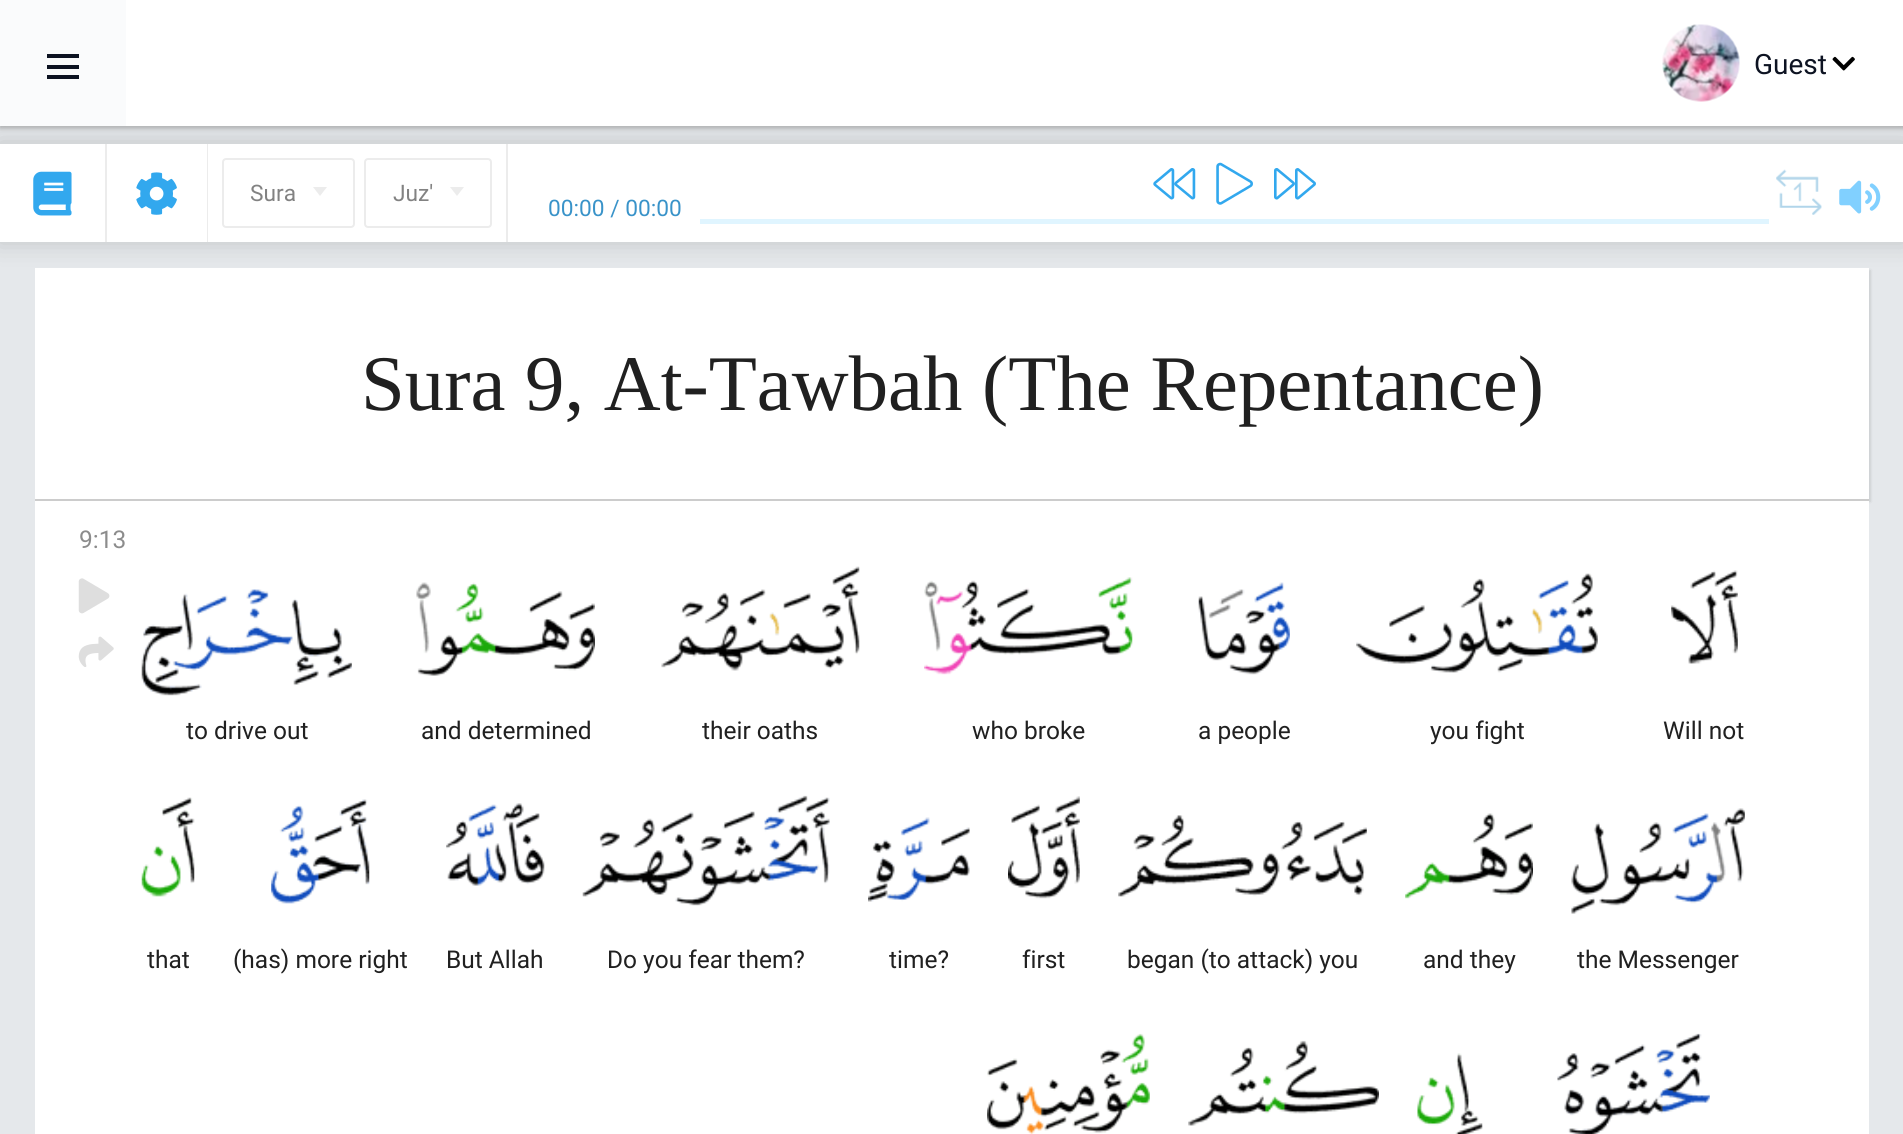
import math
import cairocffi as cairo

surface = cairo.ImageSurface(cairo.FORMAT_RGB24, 1903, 1134)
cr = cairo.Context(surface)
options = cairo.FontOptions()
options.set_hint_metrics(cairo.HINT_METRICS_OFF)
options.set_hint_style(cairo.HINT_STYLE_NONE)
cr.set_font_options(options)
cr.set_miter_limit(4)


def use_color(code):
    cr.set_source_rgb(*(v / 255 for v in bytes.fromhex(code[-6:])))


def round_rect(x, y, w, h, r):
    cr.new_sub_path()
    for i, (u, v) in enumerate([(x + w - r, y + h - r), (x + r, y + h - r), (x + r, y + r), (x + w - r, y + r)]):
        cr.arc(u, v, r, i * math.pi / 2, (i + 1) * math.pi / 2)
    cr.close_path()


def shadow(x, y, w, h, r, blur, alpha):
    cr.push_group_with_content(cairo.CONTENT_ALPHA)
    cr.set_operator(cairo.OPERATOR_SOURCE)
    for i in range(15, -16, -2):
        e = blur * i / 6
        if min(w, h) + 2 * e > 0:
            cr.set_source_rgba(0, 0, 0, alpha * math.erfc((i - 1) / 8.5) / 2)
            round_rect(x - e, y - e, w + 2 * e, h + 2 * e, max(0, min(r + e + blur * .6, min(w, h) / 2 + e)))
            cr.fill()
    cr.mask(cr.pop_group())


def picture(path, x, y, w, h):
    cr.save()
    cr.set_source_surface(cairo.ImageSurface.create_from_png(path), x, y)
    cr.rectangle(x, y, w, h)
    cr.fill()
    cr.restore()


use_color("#e5e8eb")
cr.paint()
use_color("#000000")
shadow(0, 2, 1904, 126, 0, 2, 0.2)
use_color("#aaaaaa")
shadow(0, 2, 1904, 126, 0, 3.5, 0.5)
use_color("#000000")
shadow(37, 270, 1834, 232, 0, 1, 0.1)
use_color("#ffffff")
cr.rectangle(35, 268, 1834, 231)
cr.fill()
use_color("#000000")
shadow(-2, 142, 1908, 101, 0, 13, 0.15)
use_color("#ffffff")
cr.rectangle(126, 0, 1777, 126)
cr.fill()
use_color("#fafbfc")
cr.rectangle(0, 0, 126, 126)
cr.fill()
use_color("#0d1322")
cr.rectangle(47, 54, 32, 4)
cr.fill()
cr.rectangle(47, 65, 32, 4)
cr.fill()
cr.rectangle(47, 75, 32, 4)
cr.fill()
picture("img1.png", 1662, 24, 78, 78)
cr.select_font_face("Roboto")
cr.set_font_size(28)
cr.move_to(1754, 74)
cr.show_text("Guest")
picture("img2.png", 1832, 56, 23, 15)
use_color("#ffffff")
cr.rectangle(0, 144, 1903, 98)
cr.fill()
picture("img3.png", 33, 171, 39, 45)
use_color("#ececec")
cr.rectangle(207, 144, 1, 98)
cr.fill()
cr.rectangle(105, 144, 2, 98)
cr.fill()
picture("img4.png", 136, 172, 41, 43)
round_rect(223, 159, 131, 68, 3)
cr.stroke()
cr.set_font_size(22.75)
use_color("#828282")
cr.move_to(250, 201)
cr.show_text("Sura")
use_color("#ececec")
cr.new_path()
cr.move_to(313, 187)
cr.line_to(327, 187)
cr.line_to(320, 196)
cr.close_path()
cr.fill()
round_rect(365, 159, 126, 68, 3)
cr.stroke()
use_color("#828282")
cr.move_to(393, 201)
cr.show_text("Juz'")
use_color("#ececec")
cr.new_path()
cr.move_to(450, 187)
cr.line_to(464, 187)
cr.line_to(457, 196)
cr.close_path()
cr.fill()
cr.rectangle(506, 144, 2, 98)
cr.fill()
use_color("#3993c9")
cr.move_to(548, 216)
cr.show_text("00:00 / 00:00")
picture("img5.png", 1153, 168, 43, 32)
picture("img6.png", 1216, 162, 37, 43)
picture("img7.png", 1274, 168, 42, 32)
use_color("#e0f5ff")
cr.rectangle(700, 219, 1069, 5)
cr.fill()
picture("img8.png", 1776, 169, 46, 46)
picture("img9.png", 1839, 180, 42, 34)
use_color("#cccccc")
cr.rectangle(35, 499, 1834, 2)
cr.fill()
cr.select_font_face("Liberation Serif")
cr.set_font_size(78.75)
use_color("#202020")
cr.move_to(361, 410)
cr.show_text("Sura 9, At-Tawbah (The Repentance)")
use_color("#ffffff")
cr.rectangle(35, 501, 1834, 633)
cr.fill()
cr.select_font_face("Roboto")
cr.set_font_size(24.5)
use_color("#8c8c8c")
cr.move_to(79, 548)
cr.show_text("9:13")
picture("img10.png", 78, 578, 32, 36)
picture("img11.png", 78, 636, 36, 31)
picture("img12.png", 141, 589, 211, 107)
use_color("#202020")
cr.move_to(186, 739)
cr.show_text("to drive out")
picture("img13.png", 416, 582, 179, 94)
cr.move_to(421, 739)
cr.show_text("and determined")
picture("img14.png", 661, 566, 199, 105)
cr.move_to(702, 739)
cr.show_text("their oaths")
picture("img15.png", 924, 577, 209, 98)
cr.move_to(972, 739)
cr.show_text("who broke")
picture("img16.png", 1198, 582, 92, 93)
cr.move_to(1198, 739)
cr.show_text("a people")
picture("img17.png", 1356, 573, 242, 100)
cr.move_to(1430, 739)
cr.show_text("you fight")
picture("img18.png", 1671, 570, 67, 94)
cr.move_to(1663, 739)
cr.show_text("Will not")
picture("img19.png", 141, 797, 54, 100)
cr.move_to(147, 968)
cr.show_text("that")
picture("img20.png", 271, 799, 99, 105)
cr.move_to(233, 968)
cr.show_text("(has) more right")
picture("img21.png", 446, 803, 99, 83)
cr.move_to(446, 968)
cr.show_text("But Allah")
picture("img22.png", 582, 795, 248, 111)
cr.move_to(607, 968)
cr.show_text("Do you fear them?")
picture("img23.png", 868, 817, 102, 85)
cr.move_to(889, 968)
cr.show_text("time?")
picture("img24.png", 1008, 796, 72, 103)
cr.move_to(1022, 968)
cr.show_text("first")
picture("img25.png", 1118, 815, 249, 82)
cr.move_to(1127, 968)
cr.show_text("began (to attack) you")
picture("img26.png", 1405, 813, 128, 86)
cr.move_to(1423, 968)
cr.show_text("and they")
picture("img27.png", 1571, 808, 174, 106)
cr.move_to(1577, 968)
cr.show_text("the Messenger")
picture("img28.png", 987, 1033, 163, 101)
picture("img29.png", 1188, 1040, 191, 86)
picture("img30.png", 1417, 1053, 66, 81)
picture("img31.png", 1557, 1033, 153, 101)
surface.write_to_png("result.png")
